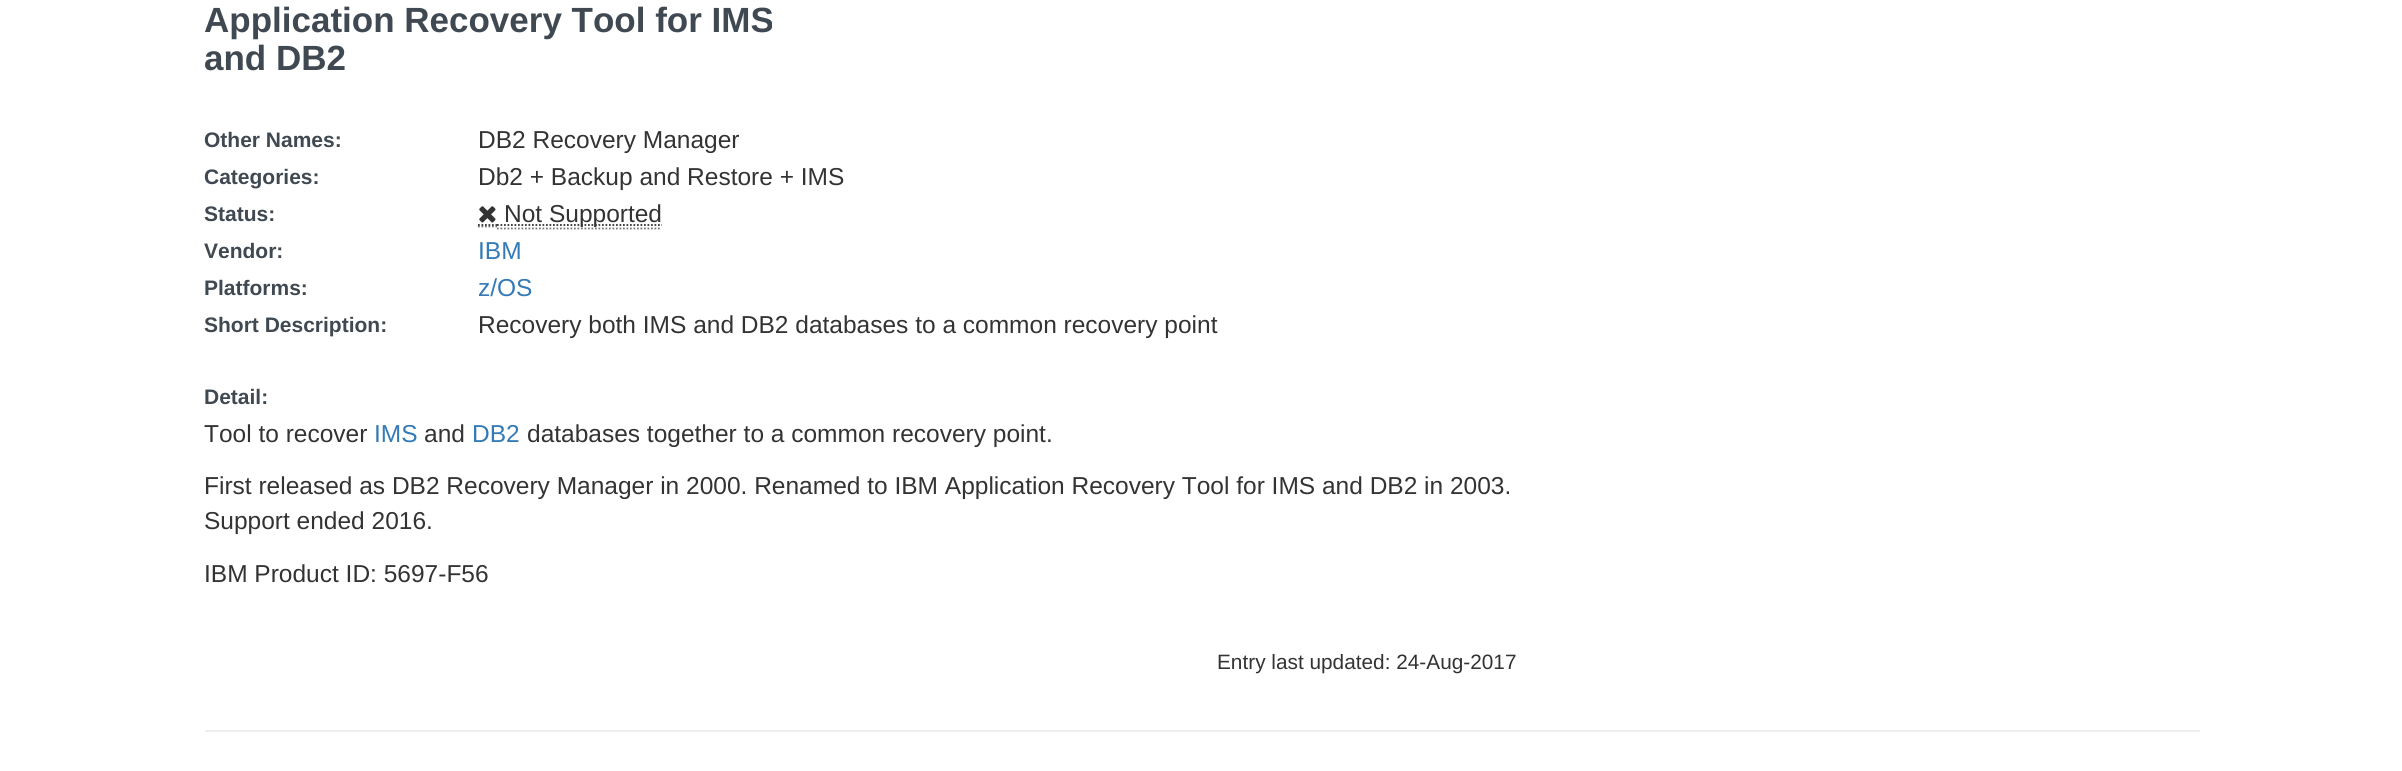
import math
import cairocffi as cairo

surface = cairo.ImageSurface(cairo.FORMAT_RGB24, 2402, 771)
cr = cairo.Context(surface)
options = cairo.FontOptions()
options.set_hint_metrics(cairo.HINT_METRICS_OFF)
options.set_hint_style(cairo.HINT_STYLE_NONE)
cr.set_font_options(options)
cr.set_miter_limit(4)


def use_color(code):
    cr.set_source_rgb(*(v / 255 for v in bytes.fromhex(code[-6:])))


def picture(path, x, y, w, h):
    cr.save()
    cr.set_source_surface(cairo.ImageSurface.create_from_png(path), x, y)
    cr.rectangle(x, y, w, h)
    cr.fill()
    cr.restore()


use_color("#ffffff")
cr.paint()
cr.select_font_face("Liberation Sans", cairo.FONT_SLANT_NORMAL, cairo.FONT_WEIGHT_BOLD)
cr.set_font_size(35)
use_color("#404952")
cr.move_to(204, 32)
cr.show_text("Application Recovery Tool for IMS")
cr.move_to(204, 70)
cr.show_text("and DB2")
cr.set_font_size(21)
cr.move_to(204, 147)
cr.show_text("Other Names:")
cr.select_font_face("Liberation Sans")
cr.set_font_size(24.5)
use_color("#333333")
cr.move_to(478, 148)
cr.show_text("DB2 Recovery Manager")
cr.select_font_face("Liberation Sans", cairo.FONT_SLANT_NORMAL, cairo.FONT_WEIGHT_BOLD)
cr.set_font_size(21)
use_color("#404952")
cr.move_to(204, 184)
cr.show_text("Categories:")
cr.select_font_face("Liberation Sans")
cr.set_font_size(24.5)
use_color("#333333")
cr.move_to(478, 185)
cr.show_text("Db2 + Backup and Restore + IMS")
cr.select_font_face("Liberation Sans", cairo.FONT_SLANT_NORMAL, cairo.FONT_WEIGHT_BOLD)
cr.set_font_size(21)
use_color("#404952")
cr.move_to(204, 221)
cr.show_text("Status:")
cr.new_path()
cr.move_to(478, 226.5)
cr.line_to(497, 226.5)
use_color("#777777")
cr.set_line_width(1.8)
cr.set_dash([1.75, 1.75])
cr.stroke()
cr.new_path()
cr.move_to(497, 228.5)
cr.line_to(661.5, 228.5)
cr.stroke()
cr.new_path()
cr.move_to(478, 225)
cr.line_to(497, 225)
use_color("#333333")
cr.stroke()
picture("img1.png", 479, 206, 17, 17)
cr.new_path()
cr.move_to(497, 225)
cr.line_to(662, 225)
cr.stroke()
cr.select_font_face("Liberation Sans")
cr.set_font_size(24.5)
cr.move_to(504, 222)
cr.show_text("Not Supported")
cr.select_font_face("Liberation Sans", cairo.FONT_SLANT_NORMAL, cairo.FONT_WEIGHT_BOLD)
cr.set_font_size(21)
use_color("#404952")
cr.move_to(204, 258)
cr.show_text("Vendor:")
cr.select_font_face("Liberation Sans")
cr.set_font_size(24.5)
use_color("#337ab7")
cr.move_to(478, 259)
cr.show_text("IBM")
cr.select_font_face("Liberation Sans", cairo.FONT_SLANT_NORMAL, cairo.FONT_WEIGHT_BOLD)
cr.set_font_size(21)
use_color("#404952")
cr.move_to(204, 295)
cr.show_text("Platforms:")
cr.select_font_face("Liberation Sans")
cr.set_font_size(24.5)
use_color("#337ab7")
cr.move_to(478, 296)
cr.show_text("z/OS")
cr.select_font_face("Liberation Sans", cairo.FONT_SLANT_NORMAL, cairo.FONT_WEIGHT_BOLD)
cr.set_font_size(21)
use_color("#404952")
cr.move_to(204, 332)
cr.show_text("Short Description:")
cr.select_font_face("Liberation Sans")
cr.set_font_size(24.5)
use_color("#333333")
cr.move_to(478, 333)
cr.show_text("Recovery both IMS and DB2 databases to a common recovery point")
cr.select_font_face("Liberation Sans", cairo.FONT_SLANT_NORMAL, cairo.FONT_WEIGHT_BOLD)
cr.set_font_size(21)
use_color("#404952")
cr.move_to(204, 404)
cr.show_text("Detail:")
cr.select_font_face("Liberation Sans")
cr.set_font_size(24.5)
use_color("#333333")
cr.move_to(204, 442)
cr.show_text("Tool to recover")
use_color("#337ab7")
cr.move_to(374, 442)
cr.show_text("IMS")
use_color("#333333")
cr.move_to(424, 442)
cr.show_text("and")
use_color("#337ab7")
cr.move_to(472, 442)
cr.show_text("DB2")
use_color("#333333")
cr.move_to(527, 442)
cr.show_text("databases together to a common recovery point.")
cr.move_to(204, 494)
cr.show_text("First released as DB2 Recovery Manager in 2000. Renamed to IBM Application Recovery Tool for IMS and DB2 in 2003.")
cr.move_to(204, 529)
cr.show_text("Support ended 2016.")
cr.move_to(204, 582)
cr.show_text("IBM Product ID: 5697-F56")
cr.set_font_size(20.8)
cr.move_to(1217, 669)
cr.show_text("Entry last updated: 24-Aug-2017")
use_color("#eeeeee")
cr.rectangle(205, 730, 1995, 2)
cr.fill()
surface.write_to_png("result.png")
